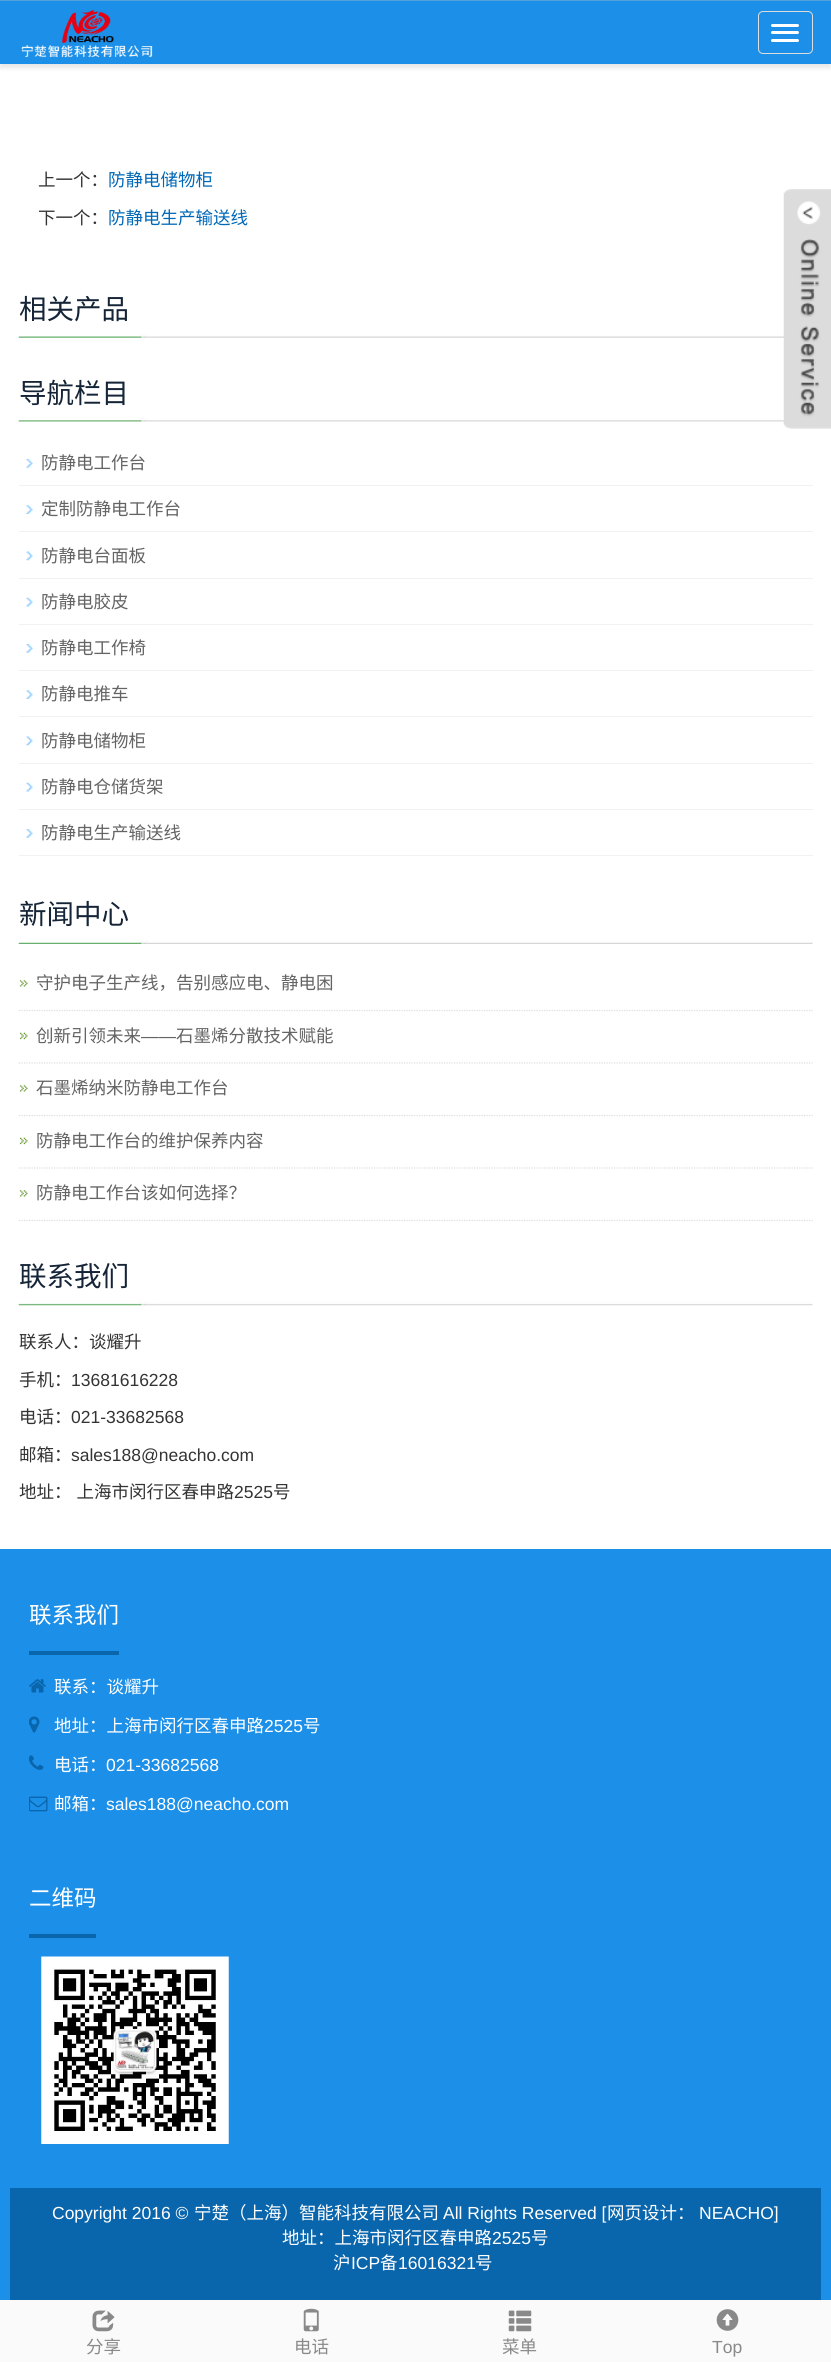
import math
import cairocffi as cairo

surface = cairo.ImageSurface(cairo.FORMAT_RGB24, 831, 2362)
cr = cairo.Context(surface)
options = cairo.FontOptions()
options.set_hint_metrics(cairo.HINT_METRICS_OFF)
options.set_hint_style(cairo.HINT_STYLE_NONE)
cr.set_font_options(options)
cr.set_miter_limit(4)


def use_color(code):
    cr.set_source_rgb(*(v / 255 for v in bytes.fromhex(code[-6:])))


def spaced_text(x, y, s, letter, word):
    cr.move_to(x, y)
    for ch in s:
        cr.show_text(ch)
        cr.rel_move_to(letter + word * (ch == ' '), 0)


def round_rect(x, y, w, h, r):
    cr.new_sub_path()
    for i, (u, v) in enumerate([(x + w - r, y + h - r), (x + r, y + h - r), (x + r, y + r), (x + w - r, y + r)]):
        cr.arc(u, v, r, i * math.pi / 2, (i + 1) * math.pi / 2)
    cr.close_path()


def shadow(x, y, w, h, r, blur, alpha):
    cr.push_group_with_content(cairo.CONTENT_ALPHA)
    cr.set_operator(cairo.OPERATOR_SOURCE)
    for i in range(15, -16, -2):
        e = blur * i / 6
        if min(w, h) + 2 * e > 0:
            cr.set_source_rgba(0, 0, 0, alpha * math.erfc((i - 1) / 8.5) / 2)
            round_rect(x - e, y - e, w + 2 * e, h + 2 * e, max(0, min(r + e + blur * .6, min(w, h) / 2 + e)))
            cr.fill()
    cr.mask(cr.pop_group())


def picture(path, x, y, w, h):
    cr.save()
    cr.set_source_surface(cairo.ImageSurface.create_from_png(path), x, y)
    cr.rectangle(x, y, w, h)
    cr.fill()
    cr.restore()


use_color("#ffffff")
cr.paint()
use_color("#000000")
shadow(0, 4, 831, 64, 0, 2.5, 0.1)
use_color("#1c8fe8")
cr.rectangle(0, 1, 831, 63)
cr.fill()
use_color("#53a0dc")
cr.rectangle(0, 0, 831, 1)
cr.fill()
picture("img1.png", 21, 10, 132, 48)
round_rect(758.5, 11.5, 54, 42, 4.5)
use_color("#dddddd")
cr.set_line_width(1)
cr.stroke()
use_color("#ffffff")
round_rect(771, 24, 28, 3, 1.5)
cr.fill()
round_rect(771, 31, 28, 3, 1.5)
cr.fill()
round_rect(771, 39, 28, 3, 1.5)
cr.fill()
cr.select_font_face("Noto Sans CJK SC")
cr.set_font_size(17.5)
use_color("#333333")
cr.move_to(38, 186)
cr.show_text("上一个：")
use_color("#0068b7")
cr.move_to(108, 186)
cr.show_text("防静电储物柜")
use_color("#333333")
cr.move_to(38, 224)
cr.show_text("下一个：")
use_color("#0068b7")
cr.move_to(108, 224)
cr.show_text("防静电生产输送线")
picture("img2.png", 18, 334, 766, 4)
cr.set_font_size(27.5)
use_color("#152437")
cr.move_to(19, 319)
cr.show_text("相关产品")
picture("img3.png", 18, 418, 766, 4)
cr.move_to(19, 403)
cr.show_text("导航栏目")
picture("img4.png", 26, 459, 7, 9)
use_color("#f2f2f2")
cr.rectangle(19, 485, 794, 1)
cr.fill()
cr.set_font_size(17.5)
use_color("#656464")
cr.move_to(41, 469)
cr.show_text("防静电工作台")
picture("img5.png", 26, 505, 7, 9)
use_color("#f2f2f2")
cr.rectangle(19, 531, 794, 1)
cr.fill()
use_color("#656464")
cr.move_to(41, 515)
cr.show_text("定制防静电工作台")
picture("img6.png", 26, 551, 7, 10)
use_color("#f2f2f2")
cr.rectangle(19, 578, 794, 1)
cr.fill()
use_color("#656464")
cr.move_to(41, 562)
cr.show_text("防静电台面板")
picture("img7.png", 26, 597, 7, 10)
use_color("#f2f2f2")
cr.rectangle(19, 624, 794, 1)
cr.fill()
use_color("#656464")
cr.move_to(41, 608)
cr.show_text("防静电胶皮")
picture("img4.png", 26, 644, 7, 9)
use_color("#f2f2f2")
cr.rectangle(19, 670, 794, 1)
cr.fill()
use_color("#656464")
cr.move_to(41, 654)
cr.show_text("防静电工作椅")
picture("img5.png", 26, 690, 7, 9)
use_color("#f2f2f2")
cr.rectangle(19, 716, 794, 1)
cr.fill()
use_color("#656464")
cr.move_to(41, 700)
cr.show_text("防静电推车")
picture("img6.png", 26, 736, 7, 10)
use_color("#f2f2f2")
cr.rectangle(19, 763, 794, 1)
cr.fill()
use_color("#656464")
cr.move_to(41, 747)
cr.show_text("防静电储物柜")
picture("img7.png", 26, 782, 7, 10)
use_color("#f2f2f2")
cr.rectangle(19, 809, 794, 1)
cr.fill()
use_color("#656464")
cr.move_to(41, 793)
cr.show_text("防静电仓储货架")
picture("img4.png", 26, 829, 7, 9)
use_color("#f2f2f2")
cr.rectangle(19, 855, 794, 1)
cr.fill()
use_color("#656464")
cr.move_to(41, 839)
cr.show_text("防静电生产输送线")
picture("img8.png", 18, 940, 795, 4)
cr.set_font_size(27.5)
use_color("#152437")
cr.move_to(19, 924)
cr.show_text("新闻中心")
picture("img9.png", 19, 980, 9, 7)
cr.new_path()
cr.move_to(19, 1010.5)
cr.line_to(812.5, 1010.5)
use_color("#dddddd")
cr.set_line_width(1.2)
cr.set_dash([1.25, 1.25])
cr.stroke()
cr.set_font_size(17.5)
use_color("#656464")
cr.move_to(36, 989)
cr.show_text("守护电子生产线，告别感应电、静电困")
picture("img10.png", 19, 1032, 9, 8)
cr.new_path()
cr.move_to(19, 1063)
cr.line_to(812.5, 1063)
use_color("#dddddd")
cr.stroke()
use_color("#656464")
cr.move_to(36, 1042)
cr.show_text("创新引领未来")
cr.select_font_face("Liberation Sans")
cr.move_to(141, 1042)
cr.show_text("——")
cr.select_font_face("Noto Sans CJK SC")
cr.move_to(176, 1042)
cr.show_text("石墨烯分散技术赋能")
picture("img9.png", 19, 1085, 9, 7)
cr.new_path()
cr.move_to(19, 1115.5)
cr.line_to(812.5, 1115.5)
use_color("#dddddd")
cr.stroke()
use_color("#656464")
cr.move_to(36, 1094)
cr.show_text("石墨烯纳米防静电工作台")
picture("img10.png", 19, 1137, 9, 8)
cr.new_path()
cr.move_to(19, 1168)
cr.line_to(812.5, 1168)
use_color("#dddddd")
cr.stroke()
use_color("#656464")
cr.move_to(36, 1147)
cr.show_text("防静电工作台的维护保养内容")
picture("img9.png", 19, 1190, 9, 7)
cr.new_path()
cr.move_to(19, 1220.5)
cr.line_to(812.5, 1220.5)
use_color("#dddddd")
cr.stroke()
use_color("#656464")
cr.move_to(36, 1199)
cr.show_text("防静电工作台该如何选择？")
picture("img11.png", 18, 1301, 795, 5)
cr.set_font_size(27.5)
use_color("#152437")
cr.move_to(19, 1286)
cr.show_text("联系我们")
cr.set_font_size(17.5)
use_color("#333333")
cr.move_to(19, 1348)
cr.show_text("联系人：谈耀升")
cr.move_to(19, 1386)
cr.show_text("手机：")
cr.select_font_face("Liberation Sans")
cr.move_to(71, 1386)
cr.show_text("13681616228")
cr.select_font_face("Noto Sans CJK SC")
cr.move_to(19, 1423)
cr.show_text("电话：")
cr.select_font_face("Liberation Sans")
cr.move_to(71, 1423)
cr.show_text("021-33682568")
cr.select_font_face("Noto Sans CJK SC")
cr.move_to(19, 1461)
cr.show_text("邮箱：")
cr.select_font_face("Liberation Sans")
cr.move_to(71, 1461)
cr.show_text("sales188@neacho.com")
cr.select_font_face("Noto Sans CJK SC")
spaced_text(19, 1498, "地址： 上海市闵行区春申路", 0, 1)
cr.select_font_face("Liberation Sans")
cr.move_to(234, 1498)
cr.show_text("2525")
cr.select_font_face("Noto Sans CJK SC")
cr.move_to(273, 1498)
cr.show_text("号")
picture("img12.png", 783, 189, 48, 240)
use_color("#1c8fe8")
cr.rectangle(0, 1549, 831, 751)
cr.fill()
use_color("#0965ac")
cr.rectangle(29, 1651, 90, 4)
cr.fill()
cr.set_font_size(22.5)
use_color("#ffffff")
cr.move_to(29, 1623)
cr.show_text("联系我们")
picture("img13.png", 29, 1679, 17, 14)
cr.set_font_size(17.5)
cr.move_to(54, 1693)
cr.show_text("联系：谈耀升")
picture("img14.png", 29, 1716, 11, 17)
cr.move_to(54, 1732)
cr.show_text("地址：上海市闵行区春申路")
cr.select_font_face("Liberation Sans")
cr.move_to(264, 1732)
cr.show_text("2525")
cr.select_font_face("Noto Sans CJK SC")
cr.move_to(303, 1732)
cr.show_text("号")
picture("img15.png", 29, 1755, 15, 15)
cr.move_to(54, 1771)
cr.show_text("电话：")
cr.select_font_face("Liberation Sans")
cr.move_to(106, 1771)
cr.show_text("021-33682568")
picture("img16.png", 29, 1796, 19, 16)
cr.select_font_face("Noto Sans CJK SC")
cr.move_to(54, 1810)
cr.show_text("邮箱：")
cr.select_font_face("Liberation Sans")
cr.move_to(106, 1810)
cr.show_text("sales188@neacho.com")
use_color("#0965ac")
cr.rectangle(29, 1934, 67, 4)
cr.fill()
cr.select_font_face("Noto Sans CJK SC")
cr.set_font_size(22.5)
use_color("#ffffff")
cr.move_to(29, 1906)
cr.show_text("二维码")
picture("img17.png", 41, 1956, 188, 188)
use_color("#0965ac")
cr.rectangle(10, 2188, 811, 112)
cr.fill()
cr.select_font_face("Liberation Sans")
cr.set_font_size(17.5)
use_color("#ffffff")
cr.move_to(52, 2219)
cr.show_text("Copyright 2016 ©")
cr.select_font_face("Noto Sans CJK SC")
cr.move_to(194, 2219)
cr.show_text("宁楚（上海）智能科技有限公司")
cr.select_font_face("Liberation Sans")
cr.move_to(443, 2219)
cr.show_text("All Rights Reserved [")
cr.select_font_face("Noto Sans CJK SC")
cr.move_to(607, 2219)
cr.show_text("网页设计：")
cr.select_font_face("Liberation Sans")
cr.move_to(699, 2219)
cr.show_text("NEACHO]")
cr.select_font_face("Noto Sans CJK SC")
cr.move_to(282, 2244)
cr.show_text("地址：上海市闵行区春申路")
cr.select_font_face("Liberation Sans")
cr.move_to(492, 2244)
cr.show_text("2525")
cr.select_font_face("Noto Sans CJK SC")
cr.move_to(531, 2244)
cr.show_text("号")
cr.move_to(333, 2269)
cr.show_text("沪")
cr.select_font_face("Liberation Sans")
cr.move_to(351, 2269)
cr.show_text("ICP")
cr.select_font_face("Noto Sans CJK SC")
cr.move_to(380, 2269)
cr.show_text("备")
cr.select_font_face("Liberation Sans")
cr.move_to(398, 2269)
cr.show_text("16016321")
cr.select_font_face("Noto Sans CJK SC")
cr.move_to(475, 2269)
cr.show_text("号")
use_color("#fafafa")
cr.rectangle(0, 2300, 831, 62)
cr.fill()
picture("img18.png", 92, 2310, 23, 22)
use_color("#898989")
cr.move_to(86, 2353)
cr.show_text("分享")
picture("img19.png", 303, 2308, 16, 24)
cr.move_to(294, 2353)
cr.show_text("电话")
picture("img20.png", 508, 2310, 24, 22)
cr.move_to(502, 2353)
cr.show_text("菜单")
picture("img21.png", 716, 2309, 23, 22)
cr.select_font_face("Liberation Sans")
cr.move_to(712, 2353)
cr.show_text("Top")
surface.write_to_png("result.png")
